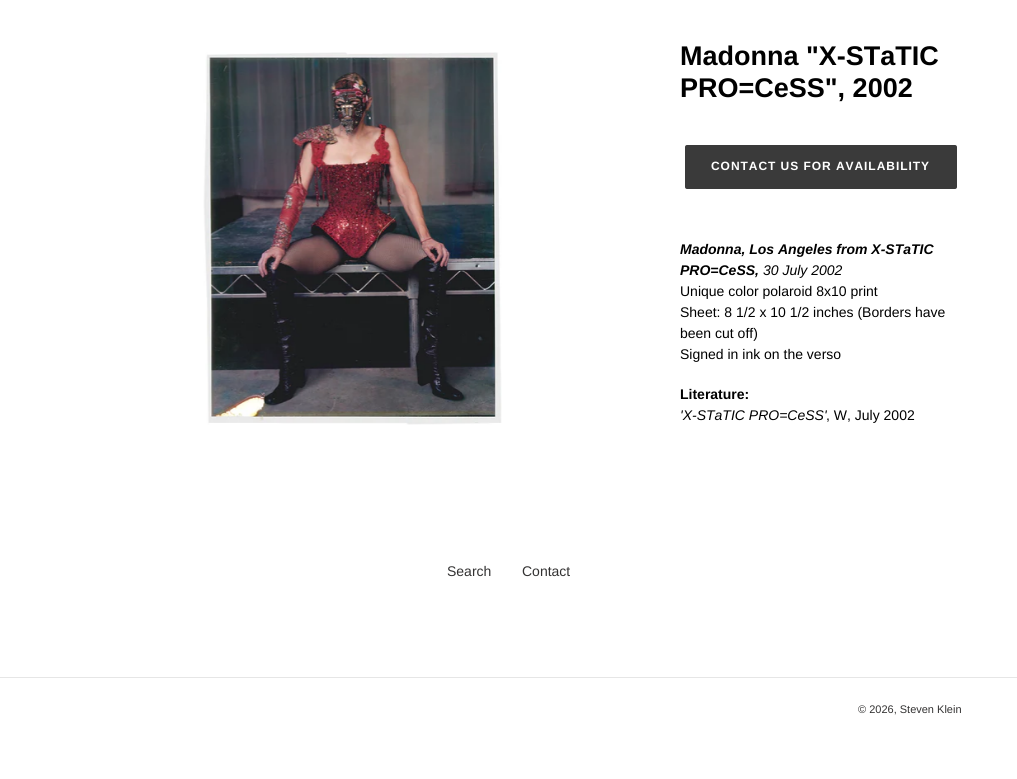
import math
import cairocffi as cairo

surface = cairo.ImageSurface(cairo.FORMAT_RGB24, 1017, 779)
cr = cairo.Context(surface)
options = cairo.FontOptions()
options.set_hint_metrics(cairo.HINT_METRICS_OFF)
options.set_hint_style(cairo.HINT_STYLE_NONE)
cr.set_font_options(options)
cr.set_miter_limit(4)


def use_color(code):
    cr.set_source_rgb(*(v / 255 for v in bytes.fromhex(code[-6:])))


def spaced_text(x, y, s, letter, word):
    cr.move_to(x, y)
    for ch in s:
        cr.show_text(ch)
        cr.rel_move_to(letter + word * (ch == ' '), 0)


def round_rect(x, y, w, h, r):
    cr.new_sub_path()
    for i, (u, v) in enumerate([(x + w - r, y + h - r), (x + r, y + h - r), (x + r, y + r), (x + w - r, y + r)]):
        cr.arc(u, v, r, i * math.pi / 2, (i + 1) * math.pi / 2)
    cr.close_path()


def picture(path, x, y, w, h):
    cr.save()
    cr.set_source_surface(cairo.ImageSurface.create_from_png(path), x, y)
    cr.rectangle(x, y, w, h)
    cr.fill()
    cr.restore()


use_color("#ffffff")
cr.paint()
picture("img1.png", 203, 52, 299, 373)
cr.select_font_face("Liberation Sans", cairo.FONT_SLANT_NORMAL, cairo.FONT_WEIGHT_BOLD)
cr.set_font_size(27)
use_color("#000000")
cr.move_to(680, 65)
cr.show_text("Madonna \"X-STaTIC")
cr.move_to(680, 97)
cr.show_text("PRO=CeSS\", 2002")
use_color("#3a3a3a")
round_rect(685, 145, 272, 44, 2)
cr.fill()
cr.set_font_size(12)
use_color("#ffffff")
spaced_text(711, 170, "CONTACT US FOR AVAILABILITY", 0.95, 0)
cr.select_font_face("Liberation Sans", cairo.FONT_SLANT_ITALIC, cairo.FONT_WEIGHT_BOLD)
cr.set_font_size(14)
use_color("#000000")
cr.move_to(680, 254)
cr.show_text("Madonna, Los Angeles from X-STaTIC")
cr.move_to(680, 275)
cr.show_text("PRO=CeSS,")
cr.select_font_face("Liberation Sans", cairo.FONT_SLANT_ITALIC)
cr.move_to(763, 275)
cr.show_text("30 July 2002")
cr.select_font_face("Liberation Sans")
cr.move_to(680, 296)
cr.show_text("Unique color polaroid 8x10 print")
cr.move_to(680, 317)
cr.show_text("Sheet: 8 1/2 x 10 1/2 inches (Borders have")
cr.move_to(680, 338)
cr.show_text("been cut off)")
cr.move_to(680, 359)
cr.show_text("Signed in ink on the verso")
cr.select_font_face("Liberation Sans", cairo.FONT_SLANT_NORMAL, cairo.FONT_WEIGHT_BOLD)
cr.move_to(680, 399)
cr.show_text("Literature:")
cr.select_font_face("Liberation Sans", cairo.FONT_SLANT_ITALIC)
cr.move_to(680, 420)
cr.show_text("'X-STaTIC PRO=CeSS'")
cr.select_font_face("Liberation Sans")
cr.move_to(826, 420)
cr.show_text(", W, July 2002")
use_color("#333232")
cr.move_to(447, 576)
cr.show_text("Search")
cr.move_to(522, 576)
cr.show_text("Contact")
use_color("#e6e6e6")
cr.rectangle(0, 677, 1017, 1)
cr.fill()
cr.set_font_size(11)
use_color("#333232")
cr.move_to(858, 713)
cr.show_text("© 2026, Steven Klein")
surface.write_to_png("result.png")
